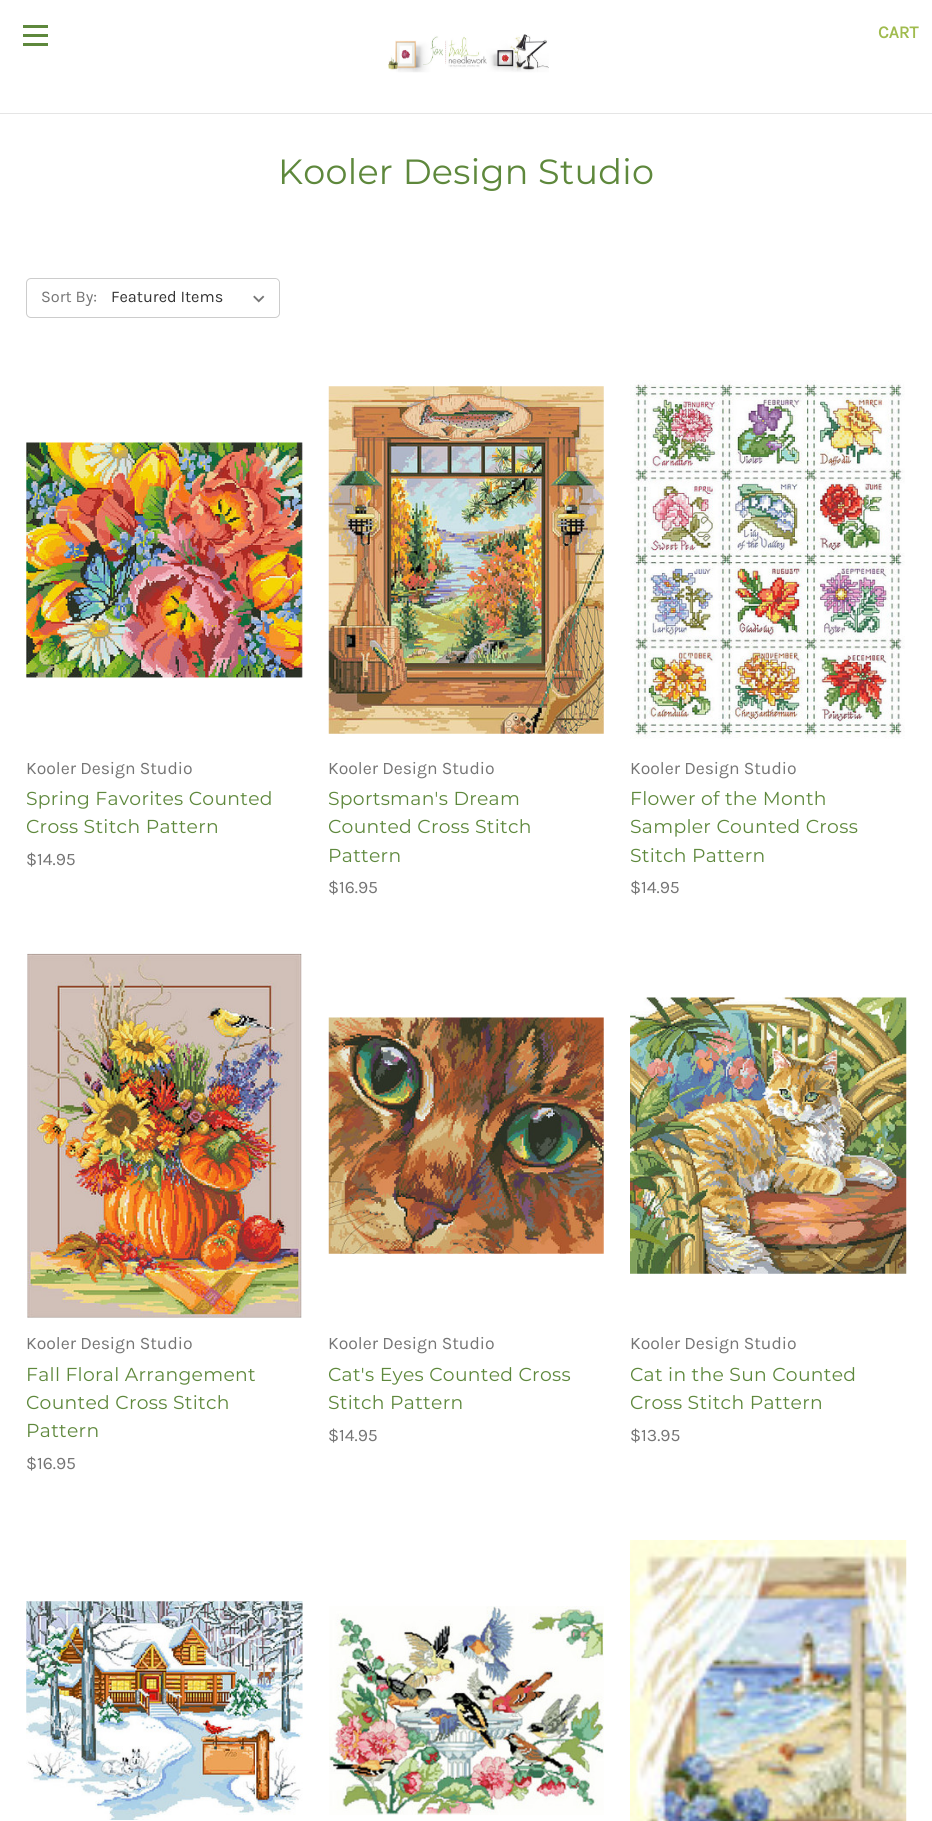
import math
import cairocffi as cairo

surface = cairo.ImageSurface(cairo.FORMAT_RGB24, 932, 1821)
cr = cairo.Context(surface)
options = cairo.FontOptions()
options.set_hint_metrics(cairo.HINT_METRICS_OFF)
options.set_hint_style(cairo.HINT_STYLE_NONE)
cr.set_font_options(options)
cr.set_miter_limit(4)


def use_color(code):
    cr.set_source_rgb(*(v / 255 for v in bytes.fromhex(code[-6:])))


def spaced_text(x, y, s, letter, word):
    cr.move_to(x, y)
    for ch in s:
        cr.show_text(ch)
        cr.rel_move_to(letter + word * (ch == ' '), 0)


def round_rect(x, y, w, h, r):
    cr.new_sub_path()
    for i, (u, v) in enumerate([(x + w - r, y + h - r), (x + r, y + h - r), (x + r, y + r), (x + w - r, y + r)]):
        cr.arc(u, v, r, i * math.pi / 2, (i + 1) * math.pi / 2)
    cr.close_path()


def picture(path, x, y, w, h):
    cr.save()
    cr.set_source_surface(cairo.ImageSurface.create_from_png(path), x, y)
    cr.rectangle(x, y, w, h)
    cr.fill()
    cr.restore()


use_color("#ffffff")
cr.paint()
use_color("#e5e5e5")
cr.rectangle(0, 113, 932, 1)
cr.fill()
use_color("#5e883c")
cr.rectangle(23, 34, 25, 3)
cr.fill()
cr.rectangle(23, 25, 25, 3)
cr.fill()
cr.rectangle(23, 43, 25, 3)
cr.fill()
cr.select_font_face("Karla", cairo.FONT_SLANT_NORMAL, cairo.FONT_WEIGHT_BOLD)
cr.set_font_size(17.5)
use_color("#a0bb4e")
cr.move_to(878, 38)
cr.show_text("CART")
picture("img1.png", 388, 34, 161, 39)
cr.select_font_face("Montserrat Thin")
cr.set_font_size(35)
use_color("#5e883c")
spaced_text(278, 184, "Kooler Design Studio", 0.3, 0)
round_rect(26.5, 278.5, 253, 39, 4.5)
use_color("#cccccc")
cr.set_line_width(1)
cr.stroke()
cr.select_font_face("Karla")
cr.set_font_size(16.25)
use_color("#757575")
cr.move_to(41, 302)
cr.show_text("Sort By:")
cr.save()
round_rect(28, 279, 251, 37, 4)
cr.clip()
use_color("#ffffff")
round_rect(108, 279, 171, 37, 5)
cr.fill()
cr.restore()
picture("img2.png", 253, 295, 12, 8)
use_color("#333333")
cr.move_to(111, 302)
cr.show_text("Featured Items")
picture("img3.png", 26, 442, 277, 236)
cr.set_font_size(17.5)
use_color("#757575")
cr.move_to(26, 774)
cr.show_text("Kooler Design Studio")
cr.select_font_face("Montserrat Thin")
cr.set_font_size(18.75)
use_color("#5e883c")
spaced_text(26, 805, "Spring Favorites Counted", 0.3, 0)
spaced_text(26, 833, "Cross Stitch Pattern", 0.3, 0)
cr.select_font_face("Karla")
cr.set_font_size(17.5)
use_color("#757575")
cr.move_to(26, 865)
cr.show_text("$14.95")
picture("img4.png", 328, 386, 276, 348)
cr.move_to(328, 774)
cr.show_text("Kooler Design Studio")
cr.select_font_face("Montserrat Thin")
cr.set_font_size(18.75)
use_color("#5e883c")
spaced_text(328, 805, "Sportsman's Dream", 0.3, 0)
spaced_text(328, 833, "Counted Cross Stitch", 0.3, 0)
spaced_text(328, 862, "Pattern", 0.3, 0)
cr.select_font_face("Karla")
cr.set_font_size(17.5)
use_color("#757575")
cr.move_to(328, 893)
cr.show_text("$16.95")
picture("img5.png", 630, 380, 275, 359)
cr.move_to(630, 774)
cr.show_text("Kooler Design Studio")
cr.select_font_face("Montserrat Thin")
cr.set_font_size(18.75)
use_color("#5e883c")
spaced_text(630, 805, "Flower of the Month", 0.3, 0)
spaced_text(630, 833, "Sampler Counted Cross", 0.3, 0)
spaced_text(630, 862, "Stitch Pattern", 0.3, 0)
cr.select_font_face("Karla")
cr.set_font_size(17.5)
use_color("#757575")
cr.move_to(630, 893)
cr.show_text("$14.95")
picture("img6.png", 27, 953, 275, 365)
cr.move_to(26, 1349)
cr.show_text("Kooler Design Studio")
cr.select_font_face("Montserrat Thin")
cr.set_font_size(18.75)
use_color("#5e883c")
spaced_text(26, 1381, "Fall Floral Arrangement", 0.3, 0)
spaced_text(26, 1409, "Counted Cross Stitch", 0.3, 0)
spaced_text(26, 1437, "Pattern", 0.3, 0)
cr.select_font_face("Karla")
cr.set_font_size(17.5)
use_color("#757575")
cr.move_to(26, 1469)
cr.show_text("$16.95")
picture("img7.png", 328, 1017, 276, 237)
cr.move_to(328, 1349)
cr.show_text("Kooler Design Studio")
cr.select_font_face("Montserrat Thin")
cr.set_font_size(18.75)
use_color("#5e883c")
spaced_text(328, 1381, "Cat's Eyes Counted Cross", 0.3, 0)
spaced_text(328, 1409, "Stitch Pattern", 0.3, 0)
cr.select_font_face("Karla")
cr.set_font_size(17.5)
use_color("#757575")
cr.move_to(328, 1441)
cr.show_text("$14.95")
picture("img8.png", 630, 997, 277, 277)
cr.move_to(630, 1349)
cr.show_text("Kooler Design Studio")
cr.select_font_face("Montserrat Thin")
cr.set_font_size(18.75)
use_color("#5e883c")
spaced_text(630, 1381, "Cat in the Sun Counted", 0.3, 0)
spaced_text(630, 1409, "Cross Stitch Pattern", 0.3, 0)
cr.select_font_face("Karla")
cr.set_font_size(17.5)
use_color("#757575")
cr.move_to(630, 1441)
cr.show_text("$13.95")
picture("img9.png", 26, 1601, 277, 219)
picture("img10.png", 329, 1606, 275, 209)
picture("img11.png", 630, 1540, 277, 281)
surface.write_to_png("result.png")
